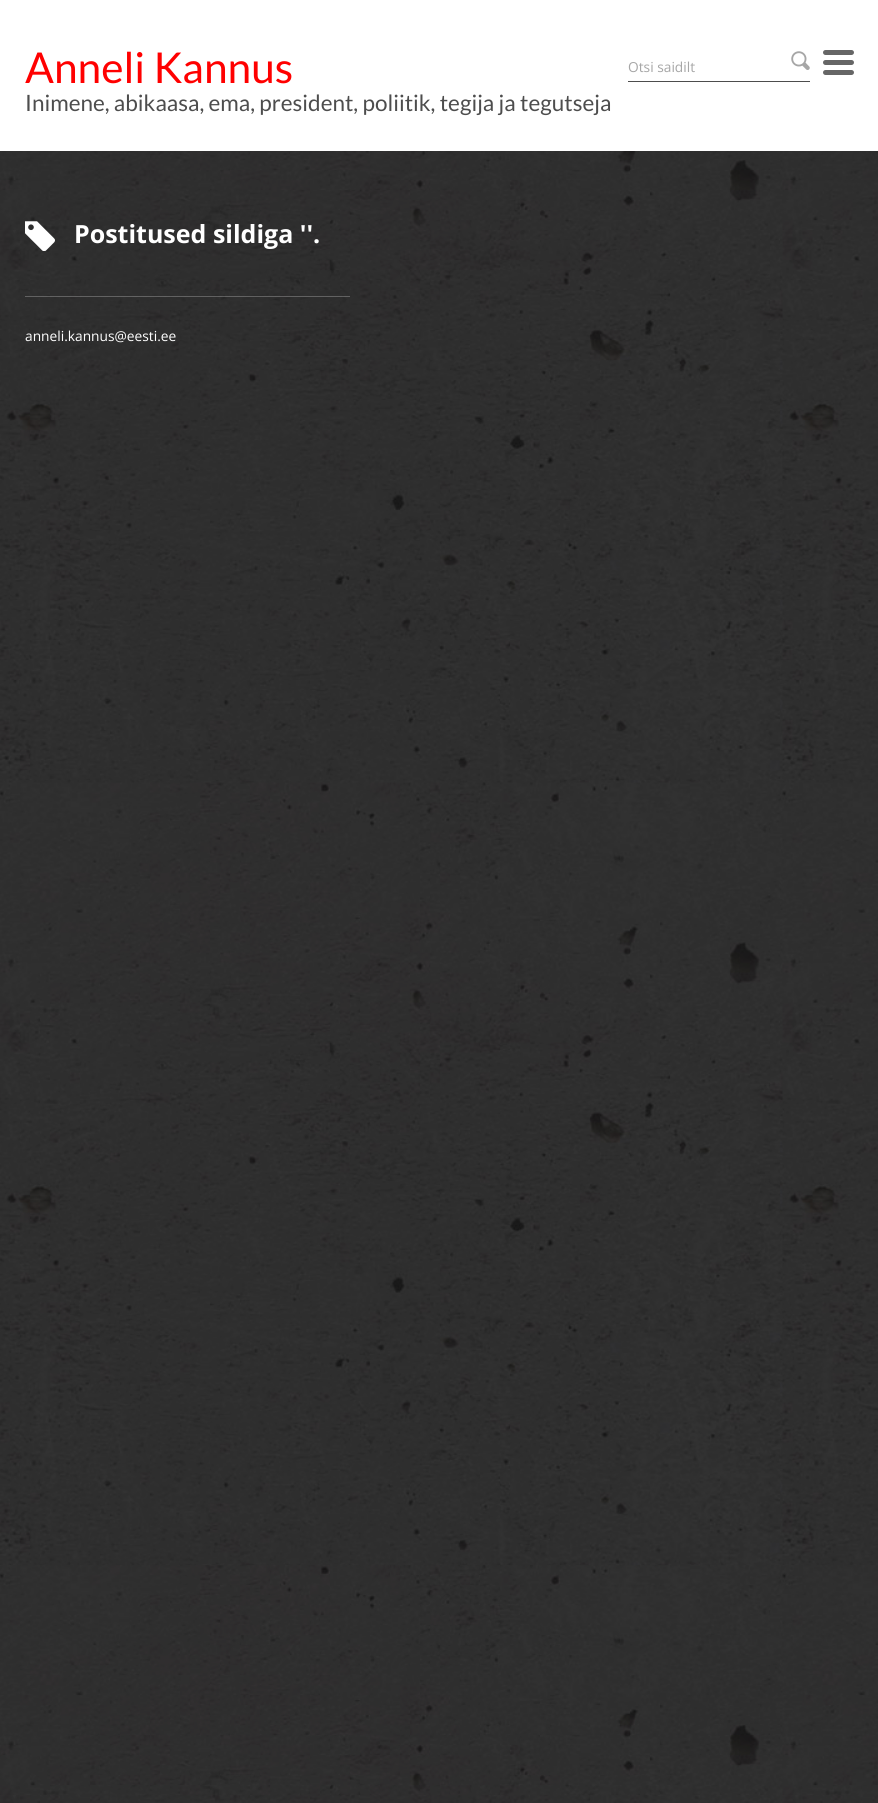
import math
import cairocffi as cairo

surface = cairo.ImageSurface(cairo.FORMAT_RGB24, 878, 1803)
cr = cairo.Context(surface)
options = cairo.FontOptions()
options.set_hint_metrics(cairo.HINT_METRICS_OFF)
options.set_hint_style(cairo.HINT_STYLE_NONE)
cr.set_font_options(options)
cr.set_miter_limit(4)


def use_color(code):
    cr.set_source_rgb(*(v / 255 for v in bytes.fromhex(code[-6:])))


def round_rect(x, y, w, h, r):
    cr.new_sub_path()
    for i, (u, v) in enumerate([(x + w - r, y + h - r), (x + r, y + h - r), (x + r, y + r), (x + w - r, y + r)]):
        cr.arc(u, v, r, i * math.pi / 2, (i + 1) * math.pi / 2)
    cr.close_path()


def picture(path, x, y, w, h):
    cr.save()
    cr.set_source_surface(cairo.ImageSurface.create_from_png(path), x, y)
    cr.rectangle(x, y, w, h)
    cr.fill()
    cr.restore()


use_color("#ffffff")
cr.paint()
picture("img1.png", 0, 151, 878, 1652)
cr.select_font_face("Lato")
cr.set_font_size(42.5)
use_color("#ff0000")
cr.move_to(25, 83)
cr.show_text("Anneli Kannus")
use_color("#666666")
round_rect(823, 50, 31, 5, 2.5)
cr.fill()
round_rect(823, 60, 31, 5, 2.5)
cr.fill()
round_rect(823, 70, 31, 5, 2.5)
cr.fill()
cr.set_font_size(22.5)
use_color("#4d4d4d")
cr.move_to(25, 111)
cr.show_text("Inimene, abikaasa, ema, president, poliitik, tegija ja tegutseja")
cr.rectangle(628, 81, 182, 1)
cr.fill()
cr.select_font_face("Open Sans")
cr.set_font_size(13.75)
use_color("#a6a6a6")
cr.move_to(628, 72)
cr.show_text("Otsi saidilt")
picture("img2.png", 791, 51, 19, 19)
picture("img3.png", 25, 221, 30, 30)
cr.select_font_face("Open Sans", cairo.FONT_SLANT_NORMAL, cairo.FONT_WEIGHT_BOLD)
cr.set_font_size(25)
use_color("#ffffff")
cr.move_to(74, 243)
cr.show_text("Postitused sildiga ''.")
cr.set_source_rgba(1, 1, 1, 0.25)
cr.rectangle(25, 296, 325, 1)
cr.fill()
cr.select_font_face("Open Sans")
cr.set_font_size(13.75)
use_color("#ffffff")
cr.move_to(25, 341)
cr.show_text("anneli.kannus@eesti.ee")
surface.write_to_png("result.png")
